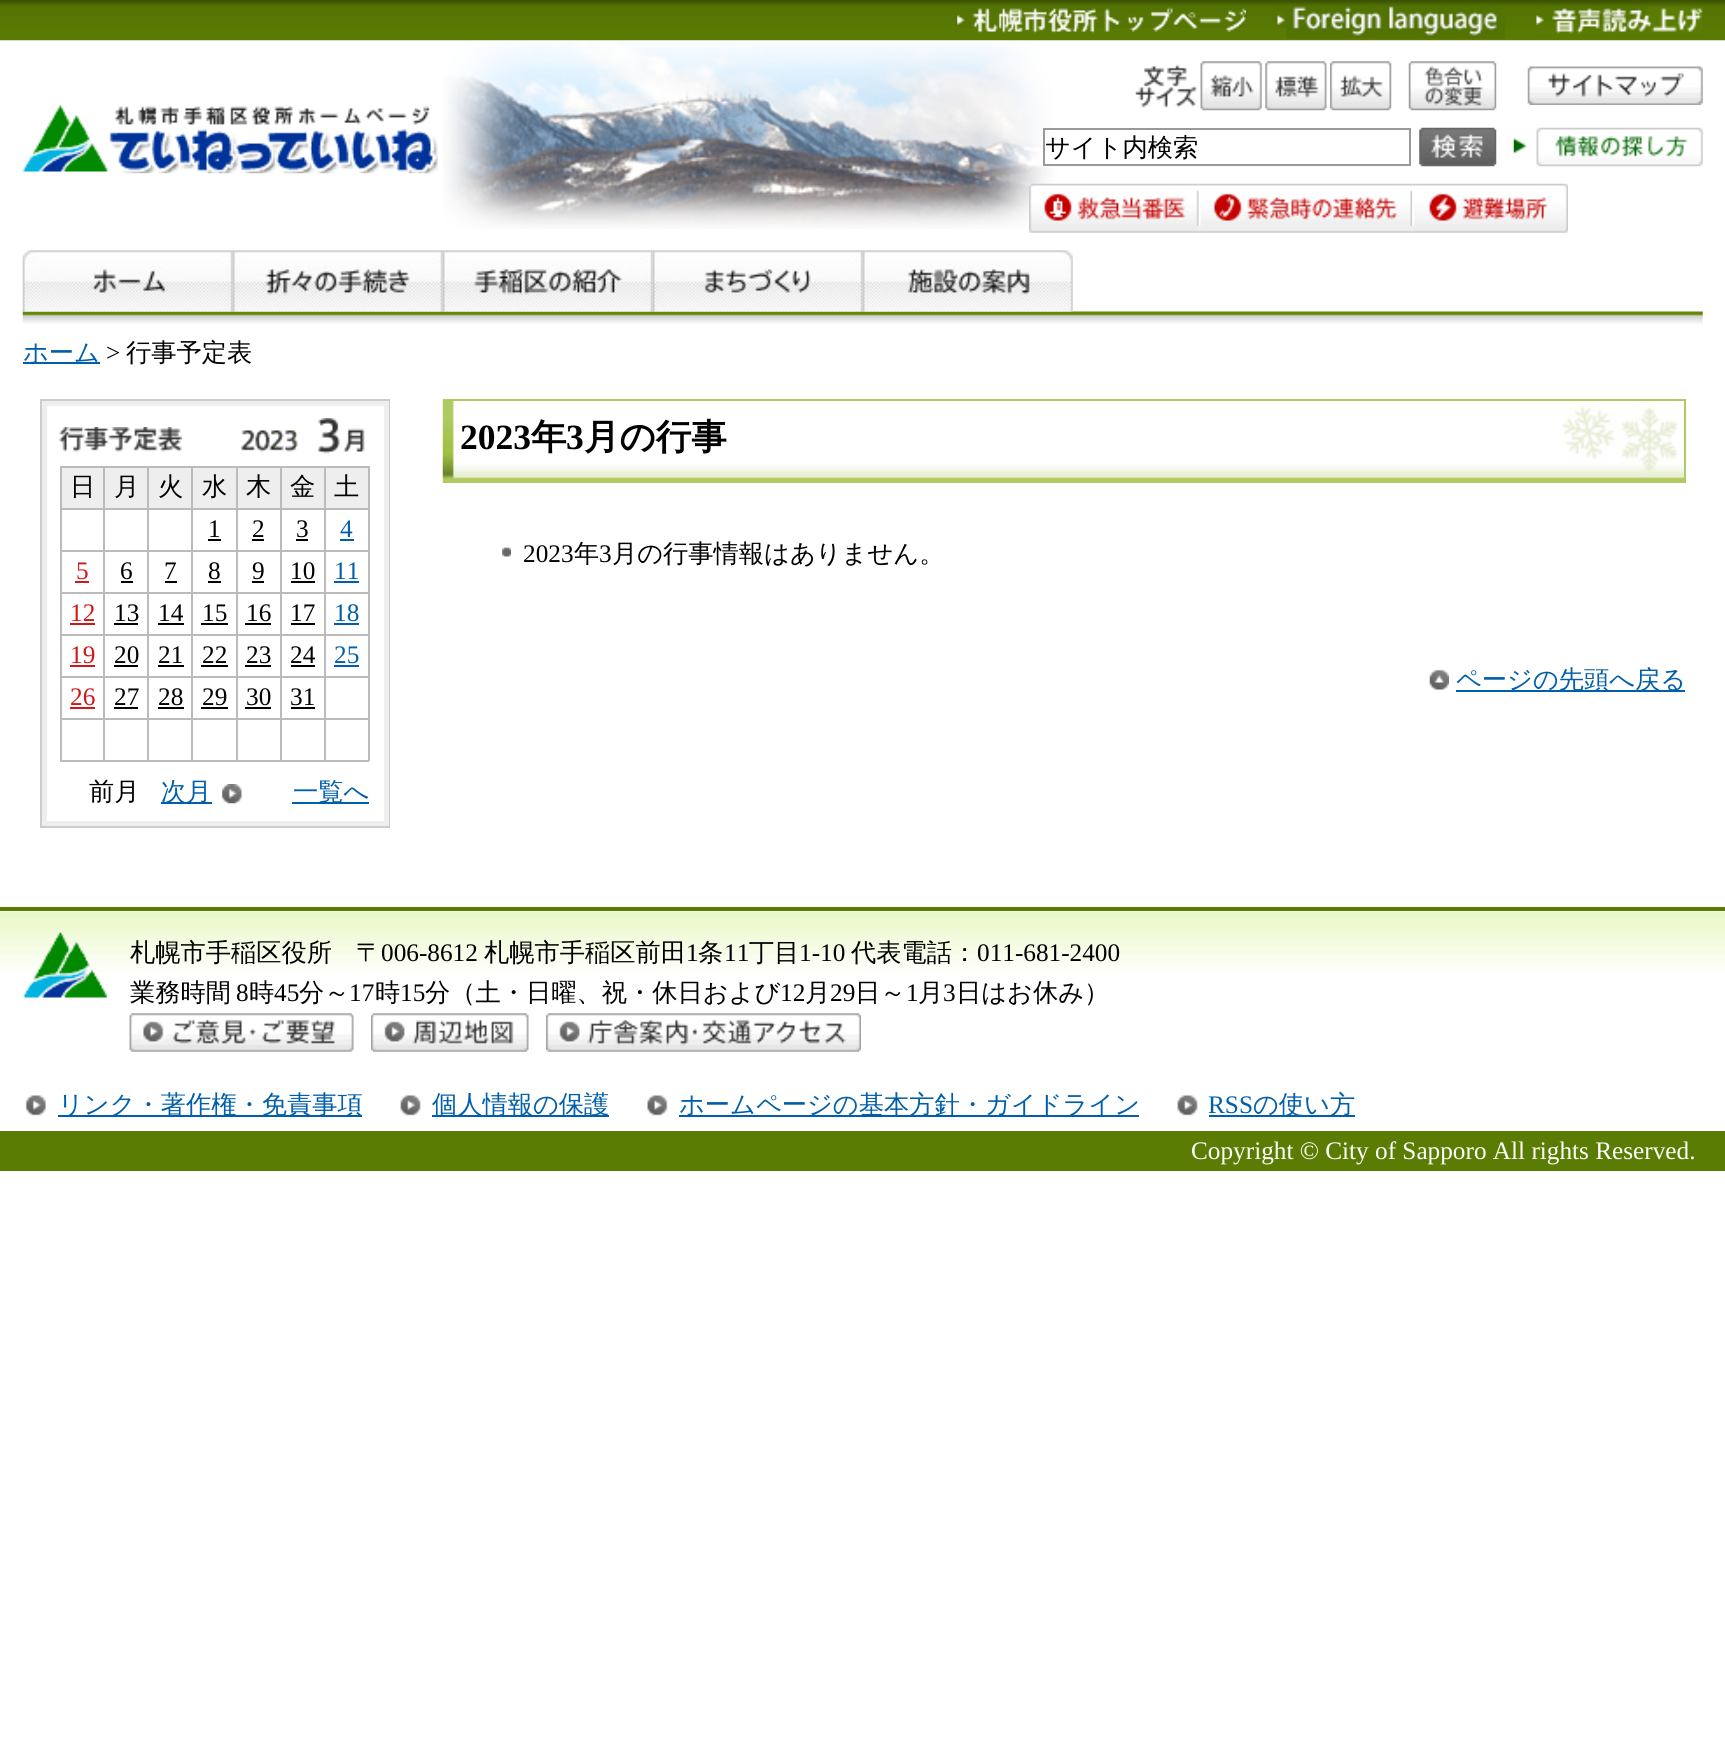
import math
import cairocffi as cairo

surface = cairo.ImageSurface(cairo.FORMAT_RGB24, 1725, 1739)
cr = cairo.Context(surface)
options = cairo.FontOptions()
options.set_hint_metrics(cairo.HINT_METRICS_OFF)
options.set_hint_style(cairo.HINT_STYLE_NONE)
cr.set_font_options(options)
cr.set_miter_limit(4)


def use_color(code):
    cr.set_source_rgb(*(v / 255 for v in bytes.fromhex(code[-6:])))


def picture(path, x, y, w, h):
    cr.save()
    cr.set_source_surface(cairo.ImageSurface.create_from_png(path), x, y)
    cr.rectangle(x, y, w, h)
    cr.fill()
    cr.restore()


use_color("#ffffff")
cr.paint()
picture("img1.png", 0, 0, 1725, 41)
picture("img2.png", 443, 42, 1071, 187)
picture("img3.png", 22, 105, 416, 69)
picture("img4.png", 957, 6, 289, 28)
picture("img5.png", 1277, 6, 228, 33)
picture("img6.png", 1536, 6, 167, 28)
picture("img7.png", 1135, 64, 62, 44)
picture("img8.png", 1200, 61, 62, 50)
picture("img9.png", 1265, 61, 62, 50)
picture("img10.png", 1330, 61, 62, 50)
picture("img11.png", 1408, 61, 89, 50)
picture("img12.png", 1527, 66, 176, 39)
use_color("#ffffff")
cr.rectangle(1045, 130, 2, 17)
cr.fill()
cr.rectangle(1044, 129, 366, 36)
use_color("#999999")
cr.stroke()
cr.select_font_face("WenQuanYi Zen Hei Medium")
cr.set_font_size(25.25)
use_color("#000000")
cr.move_to(1045, 156)
cr.show_text("サイト内検索")
picture("img13.png", 1419, 127, 78, 40)
picture("img14.png", 1513, 127, 190, 40)
picture("img15.png", 1029, 183, 170, 50)
picture("img16.png", 1198, 183, 215, 50)
picture("img17.png", 1412, 183, 156, 50)
picture("img18.png", 22, 311, 1681, 13)
picture("img19.png", 22, 250, 211, 62)
picture("img20.png", 232, 250, 211, 62)
picture("img21.png", 442, 250, 211, 62)
picture("img22.png", 652, 250, 211, 62)
picture("img23.png", 862, 250, 211, 62)
use_color("#005eaa")
cr.rectangle(23, 362, 77, 2)
cr.fill()
cr.move_to(23, 361)
cr.show_text("ホーム")
cr.select_font_face("Liberation Serif")
use_color("#000000")
cr.move_to(106, 361)
cr.show_text(">")
cr.select_font_face("WenQuanYi Zen Hei Medium")
cr.move_to(126, 361)
cr.show_text("行事予定表")
cr.rectangle(41, 400, 348, 427)
use_color("#cccccc")
cr.stroke()
cr.rectangle(44.5, 403.5, 342, 420)
use_color("#eeeeee")
cr.set_line_width(5)
cr.stroke()
picture("img24.png", 59, 427, 123, 25)
picture("img25.png", 241, 430, 57, 22)
picture("img26.png", 318, 418, 47, 36)
use_color("#bbbbbb")
cr.rectangle(60, 466, 309, 2)
cr.fill()
cr.rectangle(368, 466, 2, 295)
cr.fill()
cr.rectangle(60, 760, 309, 2)
cr.fill()
cr.rectangle(60, 466, 2, 295)
cr.fill()
use_color("#eeeeee")
cr.rectangle(62, 468, 41, 40)
cr.fill()
use_color("#000000")
cr.move_to(70, 495)
cr.show_text("日")
use_color("#eeeeee")
cr.rectangle(105, 468, 42, 40)
cr.fill()
use_color("#bbbbbb")
cr.rectangle(324, 508, 45, 2)
cr.fill()
cr.rectangle(324, 550, 45, 2)
cr.fill()
cr.rectangle(324, 592, 45, 2)
cr.fill()
cr.rectangle(324, 634, 45, 2)
cr.fill()
cr.rectangle(324, 676, 45, 2)
cr.fill()
cr.rectangle(324, 718, 45, 2)
cr.fill()
cr.rectangle(324, 718, 2, 43)
cr.fill()
cr.rectangle(280, 718, 46, 2)
cr.fill()
cr.rectangle(324, 676, 2, 43)
cr.fill()
cr.rectangle(280, 676, 46, 2)
cr.fill()
cr.rectangle(324, 634, 2, 43)
cr.fill()
cr.rectangle(280, 634, 46, 2)
cr.fill()
cr.rectangle(324, 592, 2, 43)
cr.fill()
cr.rectangle(280, 592, 46, 2)
cr.fill()
cr.rectangle(324, 550, 2, 43)
cr.fill()
cr.rectangle(280, 550, 46, 2)
cr.fill()
cr.rectangle(324, 508, 2, 43)
cr.fill()
cr.rectangle(280, 508, 46, 2)
cr.fill()
cr.rectangle(280, 718, 2, 43)
cr.fill()
cr.rectangle(236, 718, 46, 2)
cr.fill()
cr.rectangle(280, 676, 2, 43)
cr.fill()
cr.rectangle(236, 676, 46, 2)
cr.fill()
cr.rectangle(280, 634, 2, 43)
cr.fill()
cr.rectangle(236, 634, 46, 2)
cr.fill()
cr.rectangle(280, 592, 2, 43)
cr.fill()
cr.rectangle(236, 592, 46, 2)
cr.fill()
cr.rectangle(280, 550, 2, 43)
cr.fill()
cr.rectangle(236, 550, 46, 2)
cr.fill()
cr.rectangle(280, 508, 2, 43)
cr.fill()
cr.rectangle(236, 508, 46, 2)
cr.fill()
cr.rectangle(236, 718, 2, 43)
cr.fill()
cr.rectangle(191, 718, 47, 2)
cr.fill()
cr.rectangle(236, 676, 2, 43)
cr.fill()
cr.rectangle(191, 676, 47, 2)
cr.fill()
cr.rectangle(236, 634, 2, 43)
cr.fill()
cr.rectangle(191, 634, 47, 2)
cr.fill()
cr.rectangle(236, 592, 2, 43)
cr.fill()
cr.rectangle(191, 592, 47, 2)
cr.fill()
cr.rectangle(236, 550, 2, 43)
cr.fill()
cr.rectangle(191, 550, 47, 2)
cr.fill()
cr.rectangle(236, 508, 2, 43)
cr.fill()
cr.rectangle(191, 508, 47, 2)
cr.fill()
cr.rectangle(191, 718, 2, 43)
cr.fill()
cr.rectangle(147, 718, 46, 2)
cr.fill()
cr.rectangle(191, 676, 2, 43)
cr.fill()
cr.rectangle(147, 676, 46, 2)
cr.fill()
cr.rectangle(191, 634, 2, 43)
cr.fill()
cr.rectangle(147, 634, 46, 2)
cr.fill()
cr.rectangle(191, 592, 2, 43)
cr.fill()
cr.rectangle(147, 592, 46, 2)
cr.fill()
cr.rectangle(191, 550, 2, 43)
cr.fill()
cr.rectangle(147, 550, 46, 2)
cr.fill()
cr.rectangle(191, 508, 2, 43)
cr.fill()
cr.rectangle(147, 508, 46, 2)
cr.fill()
cr.rectangle(147, 718, 2, 43)
cr.fill()
cr.rectangle(103, 718, 46, 2)
cr.fill()
cr.rectangle(147, 676, 2, 43)
cr.fill()
cr.rectangle(103, 676, 46, 2)
cr.fill()
cr.rectangle(147, 634, 2, 43)
cr.fill()
cr.rectangle(103, 634, 46, 2)
cr.fill()
cr.rectangle(147, 592, 2, 43)
cr.fill()
cr.rectangle(103, 592, 46, 2)
cr.fill()
cr.rectangle(147, 550, 2, 43)
cr.fill()
cr.rectangle(103, 550, 46, 2)
cr.fill()
cr.rectangle(147, 508, 2, 43)
cr.fill()
cr.rectangle(103, 508, 46, 2)
cr.fill()
cr.rectangle(103, 718, 2, 43)
cr.fill()
cr.rectangle(60, 718, 45, 2)
cr.fill()
cr.rectangle(103, 676, 2, 43)
cr.fill()
cr.rectangle(60, 676, 45, 2)
cr.fill()
cr.rectangle(103, 634, 2, 43)
cr.fill()
cr.rectangle(60, 634, 45, 2)
cr.fill()
cr.rectangle(103, 592, 2, 43)
cr.fill()
cr.rectangle(60, 592, 45, 2)
cr.fill()
cr.rectangle(103, 550, 2, 43)
cr.fill()
cr.rectangle(60, 550, 45, 2)
cr.fill()
cr.rectangle(103, 508, 2, 43)
cr.fill()
cr.rectangle(60, 508, 45, 2)
cr.fill()
cr.rectangle(103, 466, 2, 43)
cr.fill()
use_color("#000000")
cr.move_to(114, 495)
cr.show_text("月")
use_color("#eeeeee")
cr.rectangle(149, 468, 42, 40)
cr.fill()
use_color("#bbbbbb")
cr.rectangle(147, 466, 2, 43)
cr.fill()
use_color("#000000")
cr.move_to(158, 495)
cr.show_text("火")
use_color("#eeeeee")
cr.rectangle(193, 468, 43, 40)
cr.fill()
use_color("#bbbbbb")
cr.rectangle(191, 466, 2, 43)
cr.fill()
use_color("#000000")
cr.move_to(202, 495)
cr.show_text("水")
use_color("#eeeeee")
cr.rectangle(238, 468, 42, 40)
cr.fill()
use_color("#bbbbbb")
cr.rectangle(236, 466, 2, 43)
cr.fill()
use_color("#000000")
cr.move_to(246, 495)
cr.show_text("木")
use_color("#eeeeee")
cr.rectangle(282, 468, 42, 40)
cr.fill()
use_color("#bbbbbb")
cr.rectangle(280, 466, 2, 43)
cr.fill()
use_color("#000000")
cr.move_to(290, 495)
cr.show_text("金")
use_color("#eeeeee")
cr.rectangle(326, 468, 42, 40)
cr.fill()
use_color("#bbbbbb")
cr.rectangle(324, 466, 2, 43)
cr.fill()
use_color("#000000")
cr.move_to(334, 495)
cr.show_text("土")
cr.select_font_face("Liberation Serif")
cr.move_to(208, 537)
cr.show_text("1")
cr.rectangle(208, 539, 13, 2)
cr.fill()
cr.move_to(252, 537)
cr.show_text("2")
cr.rectangle(252, 539, 12, 2)
cr.fill()
cr.move_to(296, 537)
cr.show_text("3")
cr.rectangle(296, 539, 12, 2)
cr.fill()
use_color("#005eaa")
cr.move_to(340, 537)
cr.show_text("4")
cr.rectangle(340, 539, 14, 2)
cr.fill()
use_color("#d11818")
cr.move_to(76, 579)
cr.show_text("5")
cr.rectangle(75, 581, 14, 2)
cr.fill()
use_color("#000000")
cr.move_to(120, 579)
cr.show_text("6")
cr.rectangle(121, 581, 12, 2)
cr.fill()
cr.move_to(164, 579)
cr.show_text("7")
cr.rectangle(165, 581, 12, 2)
cr.fill()
cr.move_to(208, 579)
cr.show_text("8")
cr.rectangle(208, 581, 13, 2)
cr.fill()
cr.move_to(252, 579)
cr.show_text("9")
cr.rectangle(252, 581, 12, 2)
cr.fill()
cr.move_to(290, 579)
cr.show_text("10")
cr.rectangle(291, 581, 24, 2)
cr.fill()
use_color("#005eaa")
cr.move_to(334, 579)
cr.show_text("11")
cr.rectangle(334, 581, 25, 2)
cr.fill()
use_color("#d11818")
cr.move_to(70, 621)
cr.show_text("12")
cr.rectangle(70, 623, 25, 2)
cr.fill()
use_color("#000000")
cr.move_to(114, 621)
cr.show_text("13")
cr.rectangle(114, 623, 24, 2)
cr.fill()
cr.move_to(158, 621)
cr.show_text("14")
cr.rectangle(158, 623, 26, 2)
cr.fill()
cr.move_to(202, 621)
cr.show_text("15")
cr.rectangle(201, 623, 27, 2)
cr.fill()
cr.move_to(246, 621)
cr.show_text("16")
cr.rectangle(245, 623, 26, 2)
cr.fill()
cr.move_to(290, 621)
cr.show_text("17")
cr.rectangle(291, 623, 24, 2)
cr.fill()
use_color("#005eaa")
cr.move_to(334, 621)
cr.show_text("18")
cr.rectangle(334, 623, 25, 2)
cr.fill()
use_color("#d11818")
cr.move_to(70, 663)
cr.show_text("19")
cr.rectangle(70, 665, 25, 2)
cr.fill()
use_color("#000000")
cr.move_to(114, 663)
cr.show_text("20")
cr.rectangle(114, 665, 24, 2)
cr.fill()
cr.move_to(158, 663)
cr.show_text("21")
cr.rectangle(158, 665, 26, 2)
cr.fill()
cr.move_to(202, 663)
cr.show_text("22")
cr.rectangle(201, 665, 27, 2)
cr.fill()
cr.move_to(246, 663)
cr.show_text("23")
cr.rectangle(245, 665, 26, 2)
cr.fill()
cr.move_to(290, 663)
cr.show_text("24")
cr.rectangle(291, 665, 24, 2)
cr.fill()
use_color("#005eaa")
cr.move_to(334, 663)
cr.show_text("25")
cr.rectangle(334, 665, 25, 2)
cr.fill()
use_color("#d11818")
cr.move_to(70, 705)
cr.show_text("26")
cr.rectangle(70, 707, 25, 2)
cr.fill()
use_color("#000000")
cr.move_to(114, 705)
cr.show_text("27")
cr.rectangle(114, 707, 24, 2)
cr.fill()
cr.move_to(158, 705)
cr.show_text("28")
cr.rectangle(158, 707, 26, 2)
cr.fill()
cr.move_to(202, 705)
cr.show_text("29")
cr.rectangle(201, 707, 27, 2)
cr.fill()
cr.move_to(246, 705)
cr.show_text("30")
cr.rectangle(245, 707, 26, 2)
cr.fill()
cr.move_to(290, 705)
cr.show_text("31")
cr.rectangle(291, 707, 24, 2)
cr.fill()
cr.select_font_face("WenQuanYi Zen Hei Medium")
cr.move_to(89, 800)
cr.show_text("前月")
picture("img27.png", 222, 784, 20, 20)
use_color("#005eaa")
cr.rectangle(161, 802, 51, 2)
cr.fill()
cr.move_to(161, 800)
cr.show_text("次月")
cr.rectangle(292, 802, 77, 2)
cr.fill()
cr.move_to(293, 800)
cr.show_text("一覧へ")
picture("img28.png", 442, 399, 1242, 84)
use_color("#afca60")
cr.rectangle(452, 399, 1233, 2)
cr.fill()
cr.rectangle(1684, 399, 2, 84)
cr.fill()
cr.select_font_face("Liberation Serif", cairo.FONT_SLANT_NORMAL, cairo.FONT_WEIGHT_BOLD)
cr.set_font_size(35.5)
use_color("#000000")
cr.move_to(460, 449)
cr.show_text("2023")
cr.select_font_face("WenQuanYi Zen Hei", cairo.FONT_SLANT_NORMAL, cairo.FONT_WEIGHT_BOLD)
cr.move_to(531, 449)
cr.show_text("年")
cr.select_font_face("Liberation Serif", cairo.FONT_SLANT_NORMAL, cairo.FONT_WEIGHT_BOLD)
cr.move_to(566, 449)
cr.show_text("3")
cr.select_font_face("WenQuanYi Zen Hei", cairo.FONT_SLANT_NORMAL, cairo.FONT_WEIGHT_BOLD)
cr.move_to(584, 449)
cr.show_text("月の行事")
picture("img29.png", 502, 547, 9, 10)
cr.select_font_face("Liberation Serif")
cr.set_font_size(25.25)
cr.move_to(523, 562)
cr.show_text("2023")
cr.select_font_face("WenQuanYi Zen Hei Medium")
cr.move_to(574, 562)
cr.show_text("年")
cr.select_font_face("Liberation Serif")
cr.move_to(599, 562)
cr.show_text("3")
cr.select_font_face("WenQuanYi Zen Hei Medium")
cr.move_to(612, 562)
cr.show_text("月の行事情報はありません。")
picture("img30.png", 1429, 669, 20, 21)
use_color("#005eaa")
cr.rectangle(1456, 690, 229, 2)
cr.fill()
cr.move_to(1456, 688)
cr.show_text("ページの先頭へ戻る")
picture("img31.png", 0, 911, 1725, 62)
use_color("#5b7c03")
cr.rectangle(0, 907, 1725, 4)
cr.fill()
picture("img32.png", 22, 932, 85, 66)
use_color("#000000")
cr.move_to(130, 961)
cr.show_text("札幌市手稲区役所")
cr.move_to(356, 961)
cr.show_text("〒")
cr.select_font_face("Liberation Serif")
cr.move_to(381, 961)
cr.show_text("006-8612")
cr.select_font_face("WenQuanYi Zen Hei Medium")
cr.move_to(484, 961)
cr.show_text("札幌市手稲区前田")
cr.select_font_face("Liberation Serif")
cr.move_to(686, 961)
cr.show_text("1")
cr.select_font_face("WenQuanYi Zen Hei Medium")
cr.move_to(698, 961)
cr.show_text("条")
cr.select_font_face("Liberation Serif")
cr.move_to(724, 961)
cr.show_text("11")
cr.select_font_face("WenQuanYi Zen Hei Medium")
cr.move_to(749, 961)
cr.show_text("丁目")
cr.select_font_face("Liberation Serif")
cr.move_to(799, 961)
cr.show_text("1-10")
cr.select_font_face("WenQuanYi Zen Hei Medium")
cr.move_to(851, 961)
cr.show_text("代表電話：")
cr.select_font_face("Liberation Serif")
cr.move_to(977, 961)
cr.show_text("011-681-2400")
cr.select_font_face("WenQuanYi Zen Hei Medium")
cr.move_to(130, 1001)
cr.show_text("業務時間")
cr.select_font_face("Liberation Serif")
cr.move_to(236, 1001)
cr.show_text("8")
cr.select_font_face("WenQuanYi Zen Hei Medium")
cr.move_to(249, 1001)
cr.show_text("時")
cr.select_font_face("Liberation Serif")
cr.move_to(274, 1001)
cr.show_text("45")
cr.select_font_face("WenQuanYi Zen Hei Medium")
cr.move_to(299, 1001)
cr.show_text("分～")
cr.select_font_face("Liberation Serif")
cr.move_to(349, 1001)
cr.show_text("17")
cr.select_font_face("WenQuanYi Zen Hei Medium")
cr.move_to(375, 1001)
cr.show_text("時")
cr.select_font_face("Liberation Serif")
cr.move_to(400, 1001)
cr.show_text("15")
cr.select_font_face("WenQuanYi Zen Hei Medium")
cr.move_to(425, 1001)
cr.show_text("分（土・日曜、祝・休日および")
cr.select_font_face("Liberation Serif")
cr.move_to(780, 1001)
cr.show_text("12")
cr.select_font_face("WenQuanYi Zen Hei Medium")
cr.move_to(805, 1001)
cr.show_text("月")
cr.select_font_face("Liberation Serif")
cr.move_to(830, 1001)
cr.show_text("29")
cr.select_font_face("WenQuanYi Zen Hei Medium")
cr.move_to(855, 1001)
cr.show_text("日～")
cr.select_font_face("Liberation Serif")
cr.move_to(906, 1001)
cr.show_text("1")
cr.select_font_face("WenQuanYi Zen Hei Medium")
cr.move_to(918, 1001)
cr.show_text("月")
cr.select_font_face("Liberation Serif")
cr.move_to(943, 1001)
cr.show_text("3")
cr.select_font_face("WenQuanYi Zen Hei Medium")
cr.move_to(956, 1001)
cr.show_text("日はお休み）")
picture("img33.png", 129, 1013, 225, 39)
picture("img34.png", 371, 1013, 158, 39)
picture("img35.png", 546, 1013, 315, 39)
picture("img36.png", 25, 1095, 21, 21)
use_color("#005eaa")
cr.rectangle(58, 1115, 304, 2)
cr.fill()
cr.move_to(58, 1113)
cr.show_text("リンク・著作権・免責事項")
picture("img37.png", 400, 1095, 21, 21)
cr.rectangle(432, 1115, 177, 2)
cr.fill()
cr.move_to(432, 1113)
cr.show_text("個人情報の保護")
picture("img38.png", 647, 1095, 21, 21)
cr.rectangle(679, 1115, 460, 2)
cr.fill()
cr.move_to(679, 1113)
cr.show_text("ホームページの基本方針・ガイドライン")
picture("img37.png", 1177, 1095, 21, 21)
cr.select_font_face("Liberation Serif")
cr.move_to(1208, 1113)
cr.show_text("RSS")
cr.rectangle(1209, 1115, 146, 2)
cr.fill()
cr.select_font_face("WenQuanYi Zen Hei Medium")
cr.move_to(1253, 1113)
cr.show_text("の使い方")
use_color("#5b7c03")
cr.rectangle(0, 1131, 1725, 40)
cr.fill()
cr.select_font_face("Liberation Serif")
use_color("#ffffff")
cr.move_to(1191, 1159)
cr.show_text("Copyright © City of Sapporo All rights Reserved.")
surface.write_to_png("result.png")
